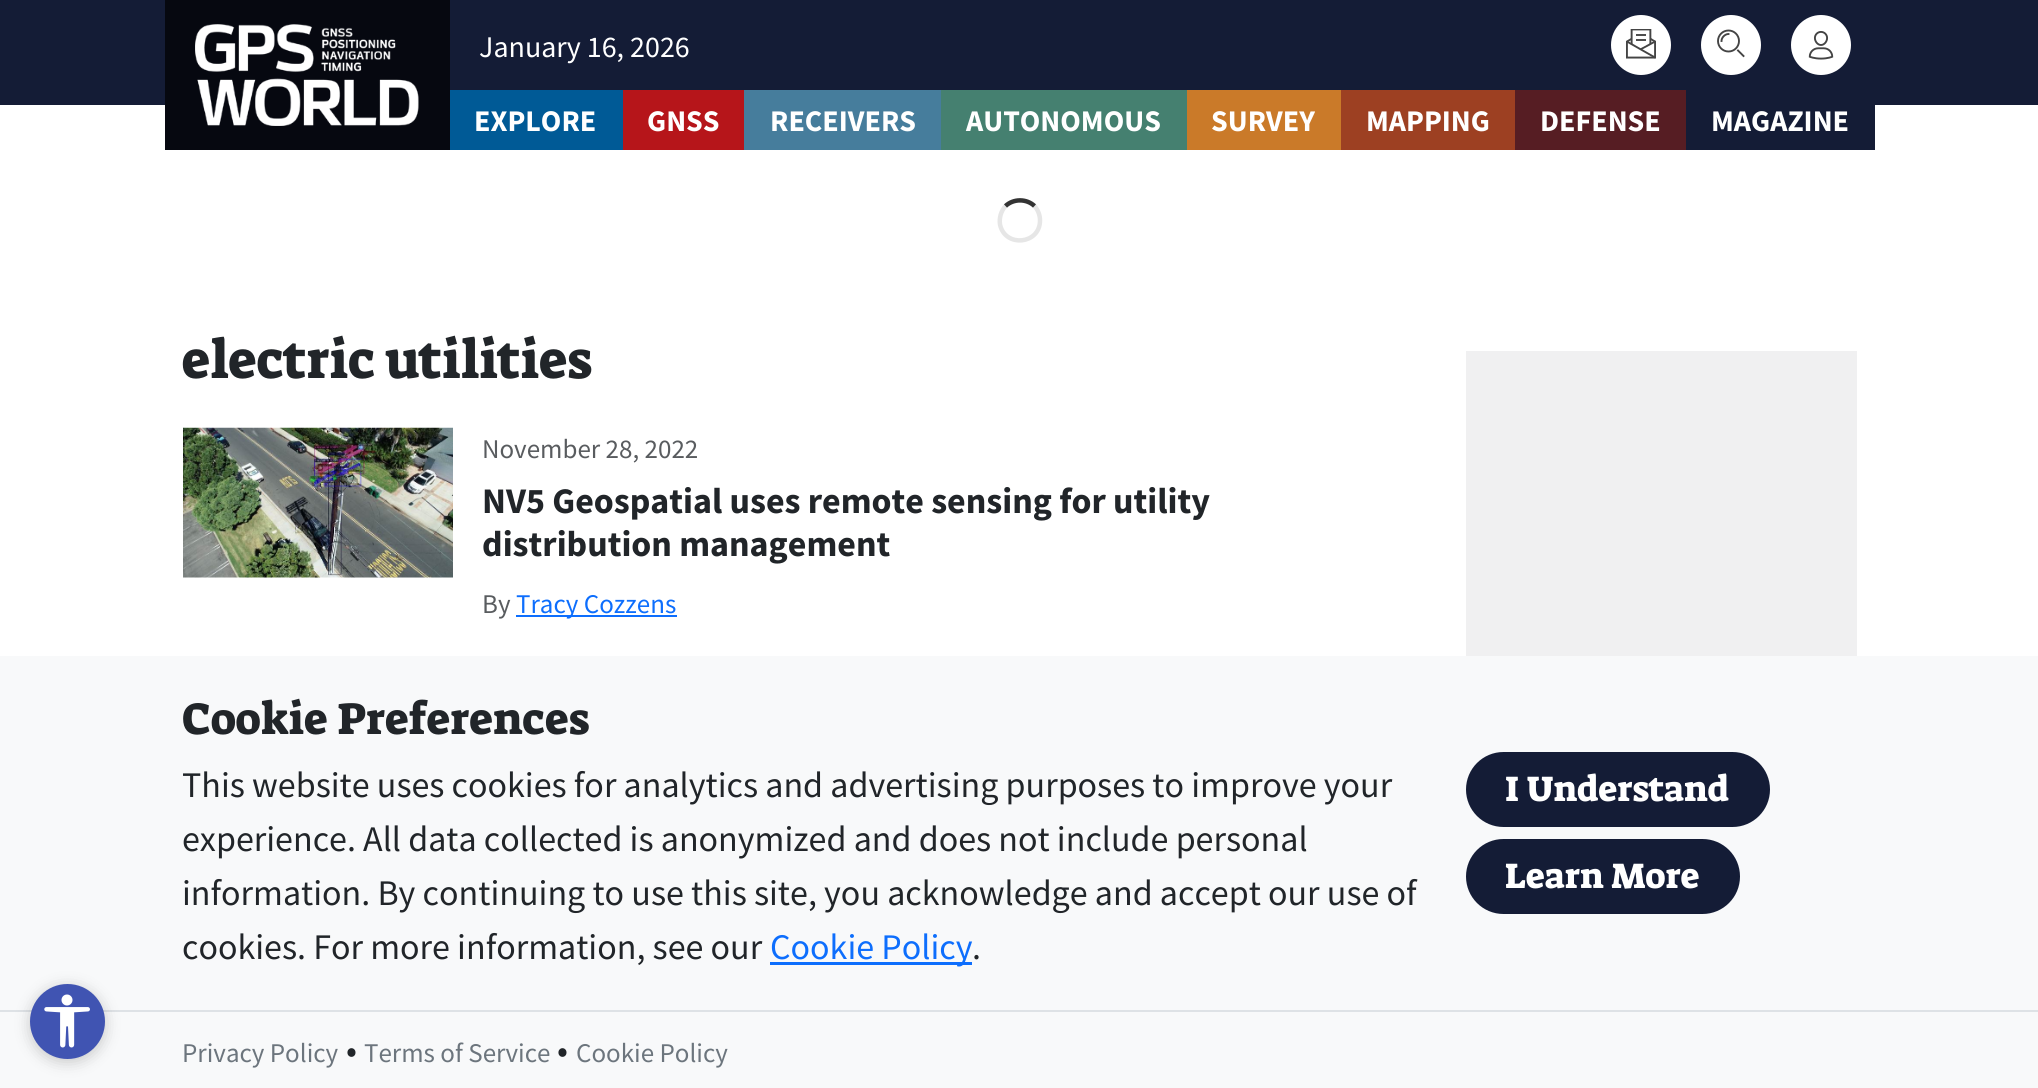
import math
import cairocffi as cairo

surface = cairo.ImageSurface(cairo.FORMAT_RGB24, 2038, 1088)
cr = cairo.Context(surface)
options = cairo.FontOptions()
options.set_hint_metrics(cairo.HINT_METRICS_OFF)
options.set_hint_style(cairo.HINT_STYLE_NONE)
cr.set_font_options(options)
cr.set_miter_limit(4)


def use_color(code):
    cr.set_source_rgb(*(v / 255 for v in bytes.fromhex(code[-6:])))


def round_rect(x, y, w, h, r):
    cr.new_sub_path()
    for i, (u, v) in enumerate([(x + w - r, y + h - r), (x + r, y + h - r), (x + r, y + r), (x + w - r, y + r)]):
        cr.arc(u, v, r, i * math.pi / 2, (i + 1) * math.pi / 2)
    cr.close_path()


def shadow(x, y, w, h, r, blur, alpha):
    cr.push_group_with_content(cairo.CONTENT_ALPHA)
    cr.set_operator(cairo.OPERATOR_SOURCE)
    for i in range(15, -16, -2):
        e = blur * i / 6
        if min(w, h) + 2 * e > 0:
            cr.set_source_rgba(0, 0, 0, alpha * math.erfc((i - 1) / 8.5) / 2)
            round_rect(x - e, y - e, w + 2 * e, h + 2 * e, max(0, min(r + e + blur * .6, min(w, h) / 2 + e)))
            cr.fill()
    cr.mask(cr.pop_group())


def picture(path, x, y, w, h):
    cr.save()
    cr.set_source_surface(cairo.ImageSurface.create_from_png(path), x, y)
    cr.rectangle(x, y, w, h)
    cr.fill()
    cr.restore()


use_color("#ffffff")
cr.paint()
use_color("#141c36")
cr.rectangle(0, 0, 2038, 105)
cr.fill()
use_color("#060810")
cr.rectangle(165, 0, 285, 150)
cr.fill()
picture("img1.png", 195, 24, 224, 102)
cr.select_font_face("Source Sans Pro")
cr.set_font_size(30)
use_color("#ffffff")
cr.move_to(479, 57)
cr.show_text("January 16, 2026")
cr.new_path()
cr.arc(1641, 45, 30, 0, 2 * math.pi)
cr.fill()
picture("img2.png", 1626, 29, 30, 30)
cr.arc(1731, 45, 30, 0, 2 * math.pi)
cr.fill()
cr.new_path()
cr.move_to(1743.5, 56)
cr.line_to(1738, 50.5)
use_color("#444444")
cr.set_line_width(1.9)
cr.set_line_cap(cairo.LINE_CAP_SQUARE)
cr.stroke()
cr.arc(1728.5, 41, 10.5, 0, 2 * math.pi)
cr.set_line_cap(cairo.LINE_CAP_BUTT)
cr.stroke()
cr.new_path()
cr.move_to(1721.5, 41)
cr.curve_to(1721.5, 37.5, 1725, 34, 1728.5, 34)
cr.set_line_cap(cairo.LINE_CAP_SQUARE)
cr.stroke()
use_color("#ffffff")
cr.arc(1821, 45, 30, 0, 2 * math.pi)
cr.fill()
picture("img3.png", 1808, 31, 26, 29)
use_color("#141c36")
cr.rectangle(1686, 105, 189, 45)
cr.fill()
use_color("#005a96")
cr.rectangle(450, 90, 173, 60)
cr.fill()
cr.select_font_face("Source Sans Pro", cairo.FONT_SLANT_NORMAL, cairo.FONT_WEIGHT_BOLD)
use_color("#ffffff")
cr.move_to(474, 131)
cr.show_text("EXPLORE")
use_color("#b6151a")
cr.rectangle(623, 90, 121, 60)
cr.fill()
use_color("#ffffff")
cr.move_to(647, 131)
cr.show_text("GNSS")
use_color("#467d9c")
cr.rectangle(744, 90, 197, 60)
cr.fill()
use_color("#ffffff")
cr.move_to(770, 131)
cr.show_text("RECEIVERS")
use_color("#458070")
cr.rectangle(941, 90, 246, 60)
cr.fill()
use_color("#ffffff")
cr.move_to(966, 131)
cr.show_text("AUTONOMOUS")
use_color("#ca7a29")
cr.rectangle(1187, 90, 154, 60)
cr.fill()
use_color("#ffffff")
cr.move_to(1211, 131)
cr.show_text("SURVEY")
use_color("#9d4022")
cr.rectangle(1341, 90, 174, 60)
cr.fill()
use_color("#ffffff")
cr.move_to(1366, 131)
cr.show_text("MAPPING")
use_color("#561d23")
cr.rectangle(1515, 90, 171, 60)
cr.fill()
use_color("#ffffff")
cr.move_to(1540, 131)
cr.show_text("DEFENSE")
cr.move_to(1711, 131)
cr.show_text("MAGAZINE")
cr.new_path()
cr.move_to(1005.5, 206)
cr.curve_to(1013.5, 198.5, 1026.5, 198.5, 1034.5, 206)
use_color("#333333")
cr.set_line_width(4.5)
cr.set_line_cap(cairo.LINE_CAP_BUTT)
cr.stroke()
cr.new_path()
cr.move_to(1034.5, 206)
cr.curve_to(1038, 210, 1040, 215, 1040, 220.5)
cr.curve_to(1040, 244.5, 1005, 248, 1000, 224.5)
cr.curve_to(999, 218, 1001, 211, 1005.5, 206)
cr.set_source_rgba(0, 0, 0, 0.1)
cr.stroke()
cr.select_font_face("Suez One")
cr.set_font_size(54)
use_color("#212529")
cr.move_to(182, 378)
cr.show_text("electric utilities")
picture("img4.png", 183, 427, 270, 151)
cr.select_font_face("Source Sans Pro")
cr.set_font_size(27)
use_color("#595c5f")
cr.move_to(482, 458)
cr.show_text("November 28, 2022")
cr.select_font_face("Source Sans Pro", cairo.FONT_SLANT_NORMAL, cairo.FONT_WEIGHT_BOLD)
cr.set_font_size(36)
use_color("#212529")
cr.move_to(482, 513)
cr.show_text("NV5 Geospatial uses remote sensing for utility")
cr.move_to(482, 556)
cr.show_text("distribution management")
cr.select_font_face("Source Sans Pro")
cr.set_font_size(27)
use_color("#595c5f")
cr.move_to(482, 613)
cr.show_text("By")
use_color("#0d6efd")
cr.rectangle(516, 615, 161, 2)
cr.fill()
cr.move_to(516, 613)
cr.show_text("Tracy Cozzens")
use_color("#f0f0f1")
cr.rectangle(1466, 351, 391, 305)
cr.fill()
use_color("#f8f9fa")
cr.rectangle(0, 656, 2038, 432)
cr.fill()
use_color("#dee2e6")
cr.rectangle(0, 1010, 2038, 2)
cr.fill()
use_color("#000000")
shadow(30, 987, 75, 75, 37.5, 7.5, 0.2)
use_color("#4054b2")
cr.arc(67.5, 1021.5, 37.5, 0, 2 * math.pi)
cr.fill()
picture("img5.png", 44, 994, 46, 54)
cr.select_font_face("Suez One")
cr.set_font_size(45)
use_color("#212529")
cr.move_to(182, 734)
cr.show_text("Cookie Preferences")
cr.select_font_face("Source Sans Pro")
cr.set_font_size(36)
cr.move_to(182, 797)
cr.show_text("This website uses cookies for analytics and advertising purposes to improve your")
cr.move_to(182, 851)
cr.show_text("experience. All data collected is anonymized and does not include personal")
cr.move_to(182, 905)
cr.show_text("information. By continuing to use this site, you acknowledge and accept our use of")
cr.move_to(182, 959)
cr.show_text("cookies. For more information, see our")
use_color("#0d6efd")
cr.rectangle(770, 962, 202, 3)
cr.fill()
cr.move_to(770, 959)
cr.show_text("Cookie Policy")
use_color("#212529")
cr.move_to(972, 959)
cr.show_text(".")
use_color("#141c36")
round_rect(1468.5, 754.5, 299, 70, 35)
cr.fill_preserve()
cr.set_line_width(5)
cr.stroke()
cr.select_font_face("Suez One")
use_color("#ffffff")
cr.move_to(1505, 801)
cr.show_text("I Understand")
use_color("#141c36")
round_rect(1468.5, 841.5, 269, 70, 35)
cr.fill_preserve()
cr.stroke()
use_color("#ffffff")
cr.move_to(1505, 888)
cr.show_text("Learn More")
cr.select_font_face("Source Sans Pro")
cr.set_font_size(27)
use_color("#6c757d")
cr.move_to(182, 1062)
cr.show_text("Privacy Policy")
cr.set_font_size(36)
use_color("#212529")
cr.move_to(346, 1062)
cr.show_text("•")
cr.set_font_size(27)
use_color("#6c757d")
cr.move_to(364, 1062)
cr.show_text("Terms of Service")
cr.set_font_size(36)
use_color("#212529")
cr.move_to(557, 1062)
cr.show_text("•")
cr.set_font_size(27)
use_color("#6c757d")
cr.move_to(576, 1062)
cr.show_text("Cookie Policy")
surface.write_to_png("result.png")
